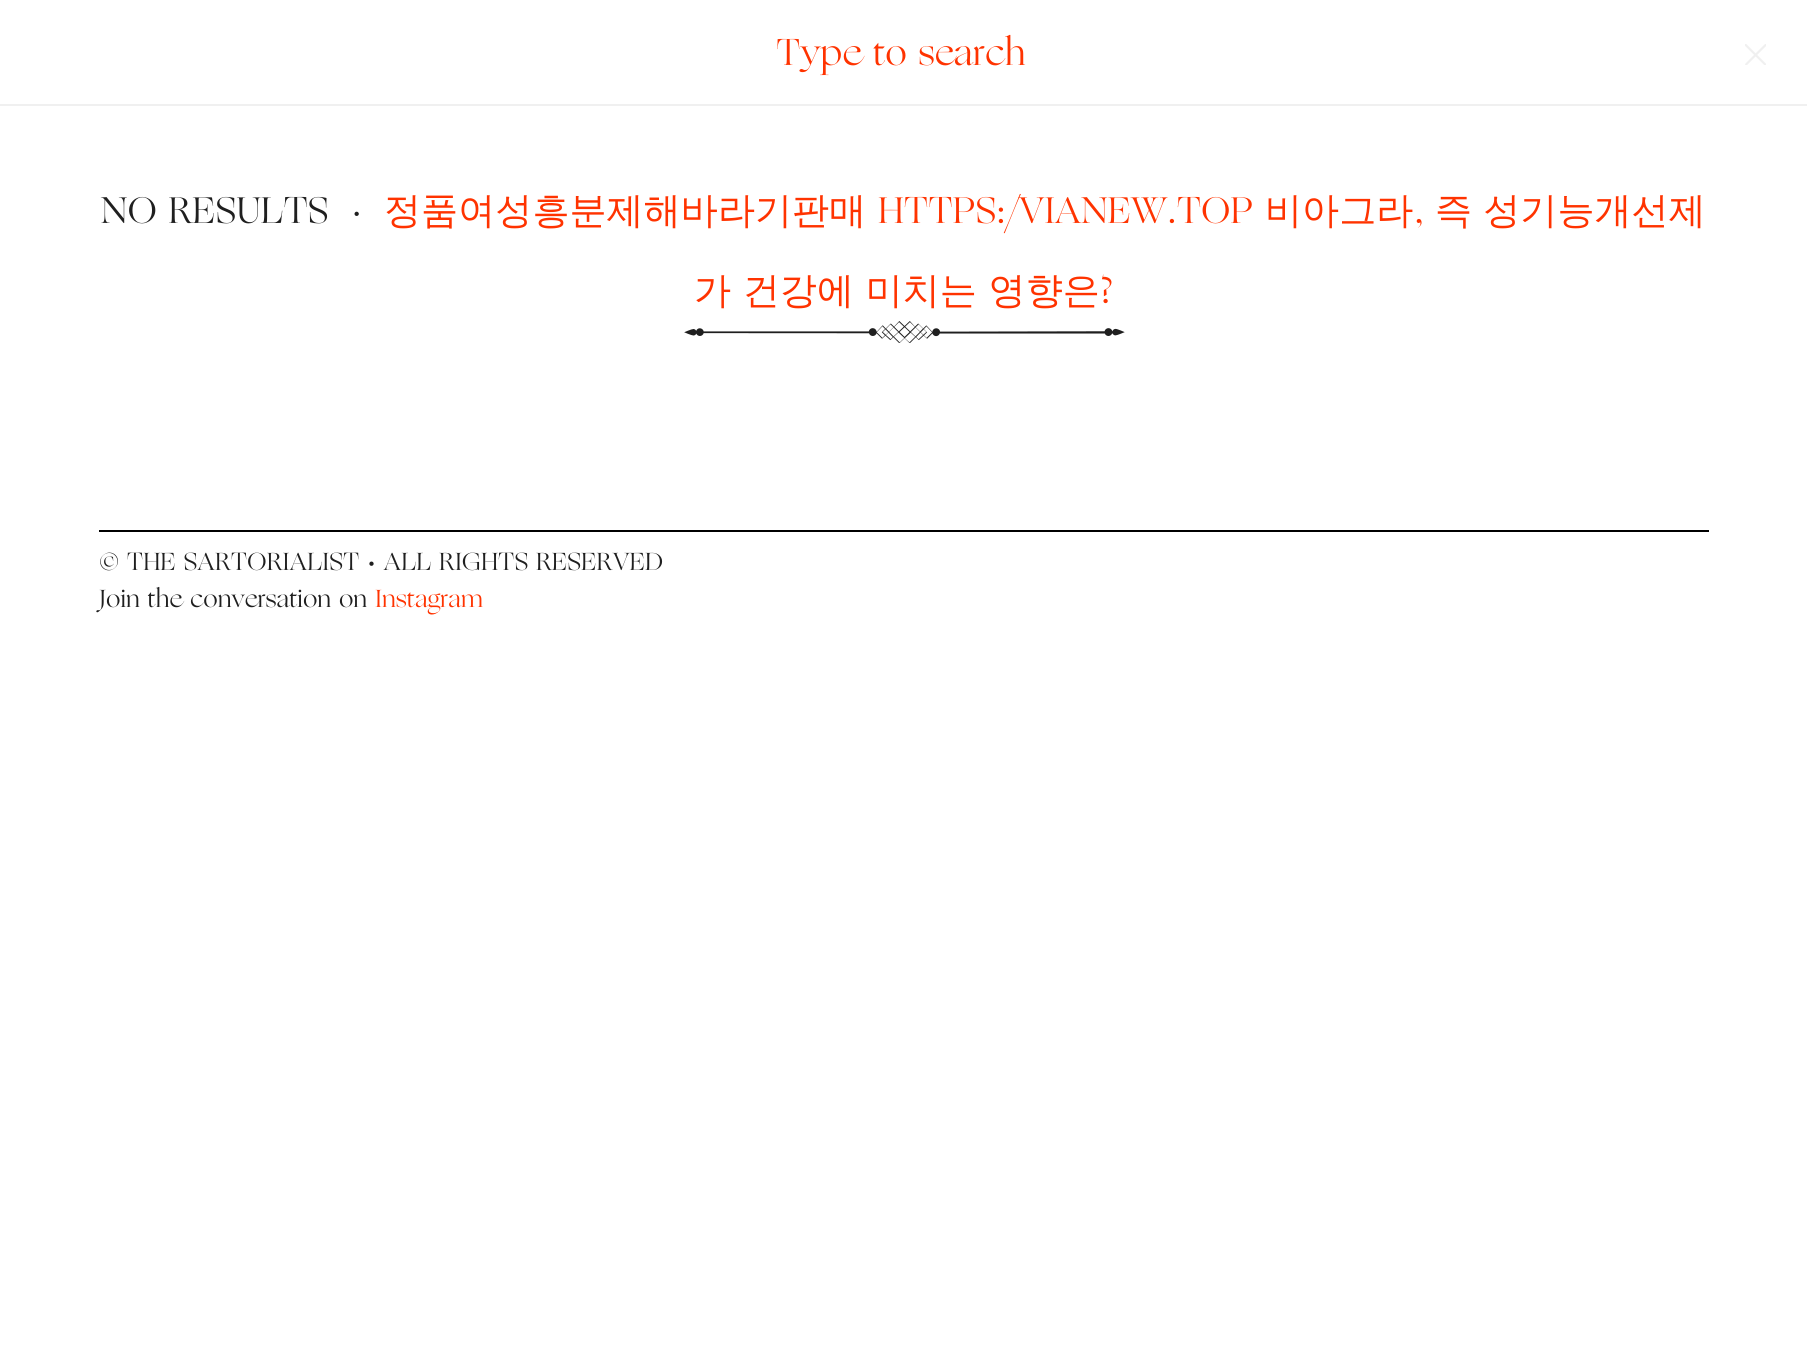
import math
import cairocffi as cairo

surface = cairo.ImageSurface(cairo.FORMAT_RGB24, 1807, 1351)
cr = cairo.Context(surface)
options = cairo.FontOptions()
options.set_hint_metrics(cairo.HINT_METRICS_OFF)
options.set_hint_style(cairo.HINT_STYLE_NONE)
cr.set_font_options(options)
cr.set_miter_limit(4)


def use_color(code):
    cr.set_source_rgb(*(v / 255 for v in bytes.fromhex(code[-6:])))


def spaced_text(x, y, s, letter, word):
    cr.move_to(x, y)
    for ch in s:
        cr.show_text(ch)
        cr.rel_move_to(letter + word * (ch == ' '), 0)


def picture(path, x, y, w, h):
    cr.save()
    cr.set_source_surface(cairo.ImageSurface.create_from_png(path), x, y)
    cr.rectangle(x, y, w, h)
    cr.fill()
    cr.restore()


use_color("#ffffff")
cr.paint()
use_color("#f0f0f0")
cr.rectangle(0, 104, 1807, 2)
cr.fill()
cr.select_font_face("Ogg")
cr.set_font_size(37.1)
use_color("#ff3300")
cr.move_to(776, 65)
cr.show_text("Type to search")
picture("img1.png", 1745, 44, 21, 21)
use_color("#1f1f1f")
cr.move_to(101, 223)
cr.show_text("NO RESULTS")
cr.move_to(352, 223)
cr.show_text("·")
cr.select_font_face("WenQuanYi Zen Hei Medium")
use_color("#ff3300")
cr.move_to(384, 223)
cr.show_text("정품여성흥분제해바라기판매")
cr.select_font_face("Ogg")
cr.move_to(878, 223)
cr.show_text("HTTPS:/VIANEW.TOP")
cr.select_font_face("WenQuanYi Zen Hei Medium")
cr.move_to(1265, 223)
cr.show_text("비아그라")
cr.move_to(1435, 223)
cr.show_text("즉 성기능개선제")
cr.select_font_face("Ogg")
cr.move_to(1414, 223)
cr.show_text(",")
cr.select_font_face("WenQuanYi Zen Hei Medium")
spaced_text(694, 303, "가 건강에 미치는 영향은", 0, 0.5)
cr.select_font_face("Ogg")
cr.move_to(1099, 303)
cr.show_text("?")
picture("img2.png", 684, 321, 441, 22)
use_color("#000000")
cr.rectangle(99, 530, 1610, 2)
cr.fill()
cr.set_font_size(24.75)
use_color("#1f1f1f")
cr.move_to(99, 570)
cr.show_text("© THE SARTORIALIST • ALL RIGHTS RESERVED")
cr.move_to(99, 607)
cr.show_text("Join the conversation on")
use_color("#ff3300")
cr.move_to(375, 607)
cr.show_text("Instagram")
surface.write_to_png("result.png")
